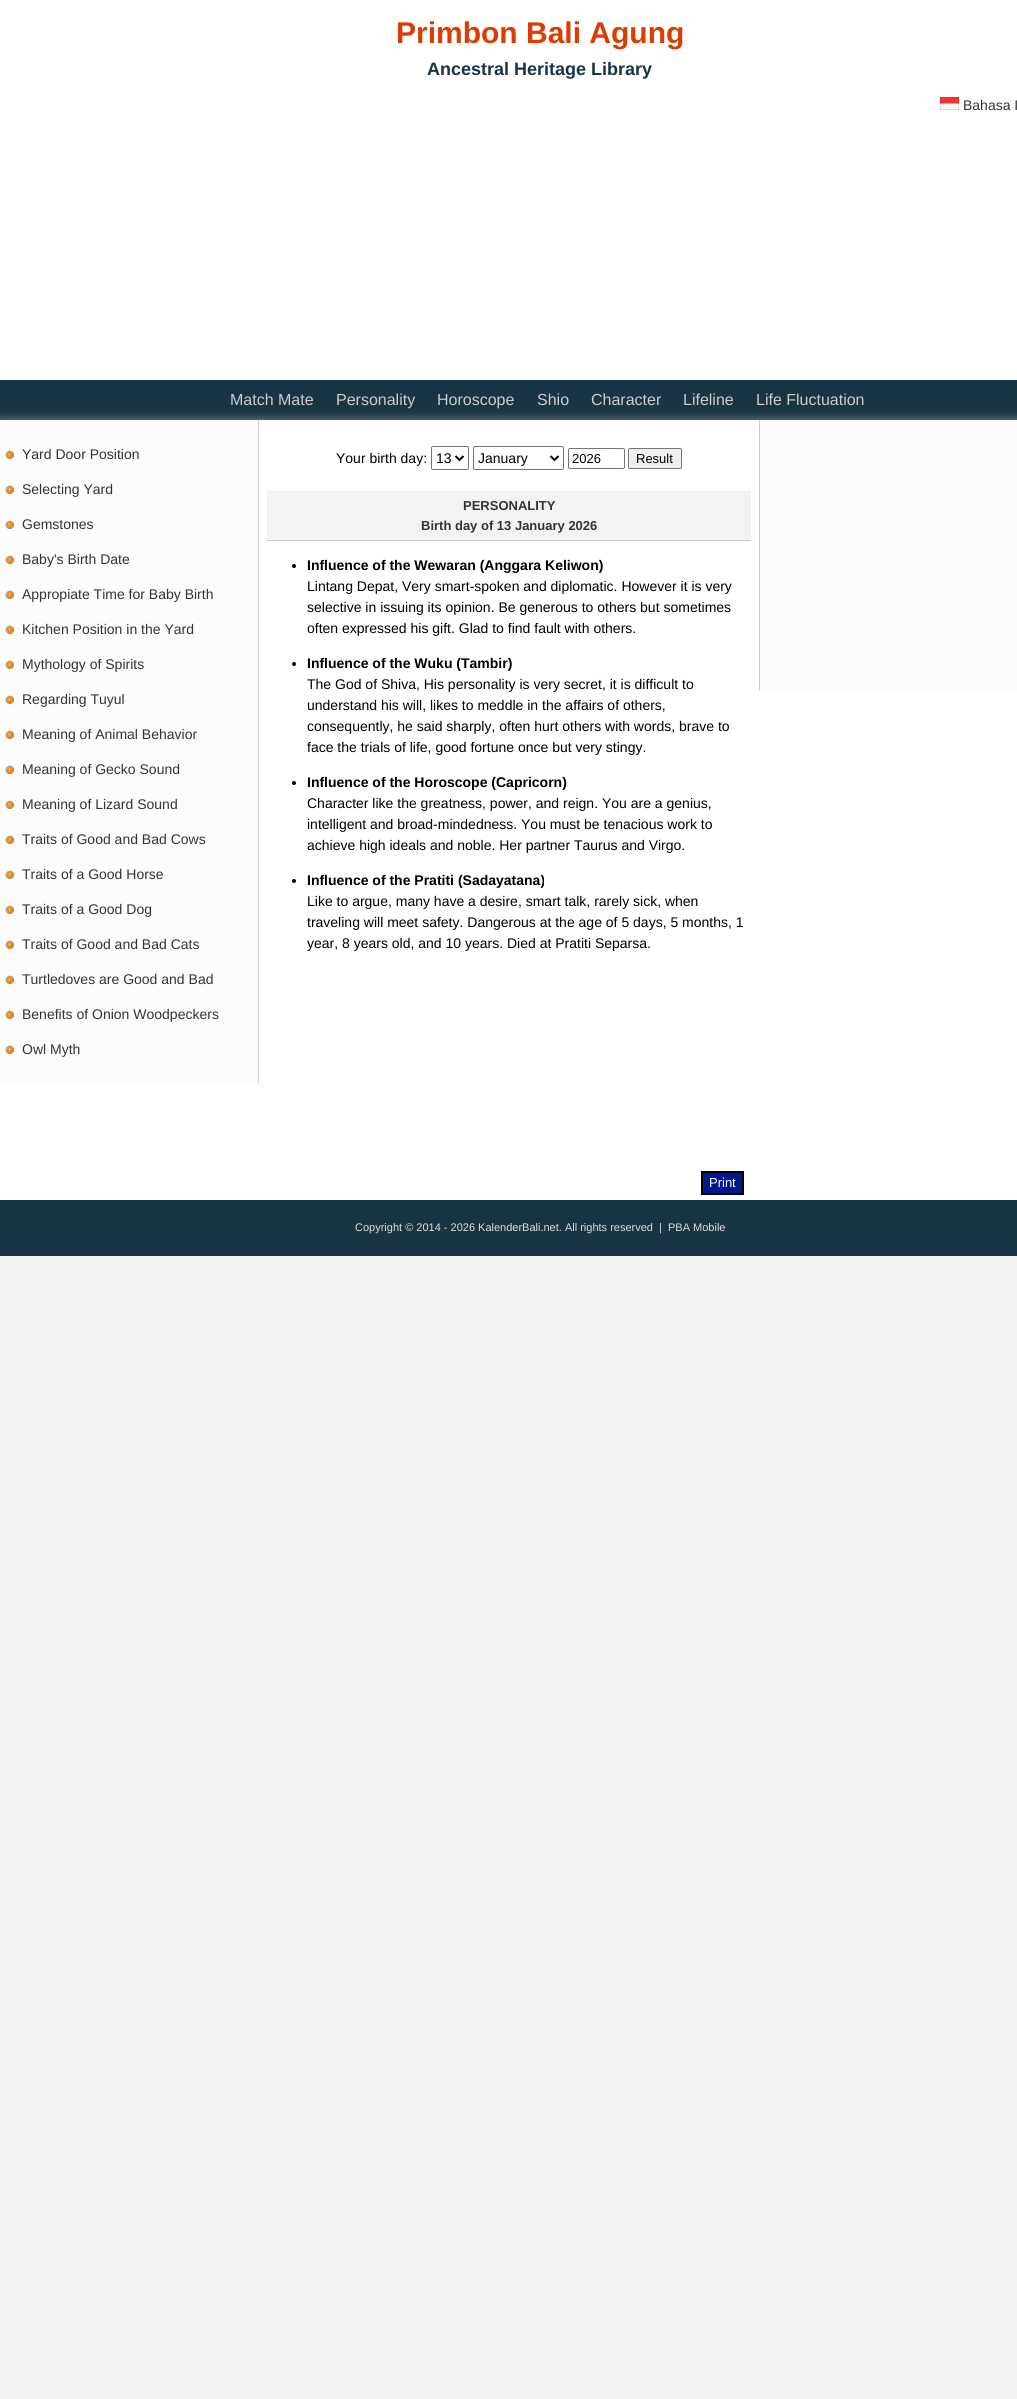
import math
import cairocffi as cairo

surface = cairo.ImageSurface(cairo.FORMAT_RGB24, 1017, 2399)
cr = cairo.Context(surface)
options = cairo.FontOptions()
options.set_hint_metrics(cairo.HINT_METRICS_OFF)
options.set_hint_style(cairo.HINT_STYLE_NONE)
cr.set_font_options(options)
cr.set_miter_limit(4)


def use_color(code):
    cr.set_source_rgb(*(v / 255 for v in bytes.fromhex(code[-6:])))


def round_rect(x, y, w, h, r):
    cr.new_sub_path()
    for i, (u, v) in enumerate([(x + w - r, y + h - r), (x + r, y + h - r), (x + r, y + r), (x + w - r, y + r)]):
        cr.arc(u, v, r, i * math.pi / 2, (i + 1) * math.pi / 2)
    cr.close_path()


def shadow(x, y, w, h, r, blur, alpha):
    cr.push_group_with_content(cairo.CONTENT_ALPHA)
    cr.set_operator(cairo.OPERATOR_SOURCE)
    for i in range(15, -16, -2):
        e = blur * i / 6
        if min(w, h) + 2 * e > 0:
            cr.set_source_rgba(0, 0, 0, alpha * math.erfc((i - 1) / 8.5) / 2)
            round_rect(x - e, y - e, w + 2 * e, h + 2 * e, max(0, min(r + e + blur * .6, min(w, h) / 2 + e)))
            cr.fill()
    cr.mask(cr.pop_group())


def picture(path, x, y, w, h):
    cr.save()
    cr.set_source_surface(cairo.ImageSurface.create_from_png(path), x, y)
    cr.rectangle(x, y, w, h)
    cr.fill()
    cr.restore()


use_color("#f2f2f2")
cr.paint()
use_color("#ffffff")
cr.rectangle(0, 0, 1017, 380)
cr.fill()
cr.select_font_face("Liberation Sans", cairo.FONT_SLANT_NORMAL, cairo.FONT_WEIGHT_BOLD)
cr.set_font_size(30)
use_color("#dc3c00")
cr.move_to(396, 43)
cr.show_text("Primbon Bali Agung")
cr.set_font_size(18)
use_color("#183546")
cr.move_to(427, 75)
cr.show_text("Ancestral Heritage Library")
picture("img1.png", 940, 97, 19, 13)
cr.select_font_face("Liberation Sans")
cr.set_font_size(14)
use_color("#333333")
cr.move_to(963, 110)
cr.show_text("Bahasa I")
use_color("#183546")
cr.rectangle(0, 380, 1017, 40)
cr.fill()
use_color("#888888")
shadow(0, 420, 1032, 780, 0, 5, 1)
cr.set_font_size(16)
use_color("#cccccc")
cr.move_to(230, 405)
cr.show_text("Match Mate")
cr.move_to(336, 405)
cr.show_text("Personality")
cr.move_to(437, 405)
cr.show_text("Horoscope")
cr.move_to(537, 405)
cr.show_text("Shio")
cr.move_to(591, 405)
cr.show_text("Character")
cr.move_to(683, 405)
cr.show_text("Lifeline")
cr.move_to(756, 405)
cr.show_text("Life Fluctuation")
use_color("#ffffff")
cr.rectangle(0, 420, 1017, 780)
cr.fill()
use_color("#fcfcfc")
cr.rectangle(0, 420, 258, 664)
cr.fill()
use_color("#cccccc")
cr.rectangle(258, 420, 1, 664)
cr.fill()
picture("img2.png", 5, 450, 9, 9)
cr.set_font_size(14)
use_color("#333333")
cr.move_to(22, 459)
cr.show_text("Yard Door Position")
picture("img2.png", 5, 485, 9, 9)
cr.move_to(22, 494)
cr.show_text("Selecting Yard")
picture("img2.png", 5, 520, 9, 9)
cr.move_to(22, 529)
cr.show_text("Gemstones")
picture("img2.png", 5, 555, 9, 9)
cr.move_to(22, 564)
cr.show_text("Baby's Birth Date")
picture("img2.png", 5, 590, 9, 9)
cr.move_to(22, 599)
cr.show_text("Appropiate Time for Baby Birth")
picture("img2.png", 5, 625, 9, 9)
cr.move_to(22, 634)
cr.show_text("Kitchen Position in the Yard")
picture("img2.png", 5, 660, 9, 9)
cr.move_to(22, 669)
cr.show_text("Mythology of Spirits")
picture("img2.png", 5, 695, 9, 9)
cr.move_to(22, 704)
cr.show_text("Regarding Tuyul")
picture("img2.png", 5, 730, 9, 9)
cr.move_to(22, 739)
cr.show_text("Meaning of Animal Behavior")
picture("img2.png", 5, 765, 9, 9)
cr.move_to(22, 774)
cr.show_text("Meaning of Gecko Sound")
picture("img2.png", 5, 800, 9, 9)
cr.move_to(22, 809)
cr.show_text("Meaning of Lizard Sound")
picture("img2.png", 5, 835, 9, 9)
cr.move_to(22, 844)
cr.show_text("Traits of Good and Bad Cows")
picture("img2.png", 5, 870, 9, 9)
cr.move_to(22, 879)
cr.show_text("Traits of a Good Horse")
picture("img2.png", 5, 905, 9, 9)
cr.move_to(22, 914)
cr.show_text("Traits of a Good Dog")
picture("img2.png", 5, 940, 9, 9)
cr.move_to(22, 949)
cr.show_text("Traits of Good and Bad Cats")
picture("img2.png", 5, 975, 9, 9)
cr.move_to(22, 984)
cr.show_text("Turtledoves are Good and Bad")
picture("img2.png", 5, 1010, 9, 9)
cr.move_to(22, 1019)
cr.show_text("Benefits of Onion Woodpeckers")
picture("img2.png", 5, 1045, 9, 9)
cr.move_to(22, 1054)
cr.show_text("Owl Myth")
use_color("#000000")
cr.move_to(336, 463)
cr.show_text("Your birth day:")
round_rect(431.5, 446.5, 37, 23, 1.5)
use_color("#767676")
cr.set_line_width(1)
cr.stroke()
cr.new_path()
cr.move_to(455.5, 456)
cr.line_to(459.5, 460)
cr.line_to(463.5, 456)
use_color("#000000")
cr.set_line_width(2)
cr.stroke()
cr.move_to(436, 463)
cr.show_text("13")
round_rect(473.5, 446.5, 90, 23, 1.5)
use_color("#767676")
cr.set_line_width(1)
cr.stroke()
cr.new_path()
cr.move_to(550.5, 456)
cr.line_to(554.5, 460)
cr.line_to(558.5, 456)
use_color("#000000")
cr.set_line_width(2)
cr.stroke()
cr.move_to(478, 463)
cr.show_text("January")
round_rect(568.5, 448.5, 56, 20, 1.5)
use_color("#767676")
cr.set_line_width(1)
cr.stroke()
cr.set_font_size(13)
use_color("#000000")
cr.move_to(572, 463)
cr.show_text("2026")
use_color("#efefef")
round_rect(628.5, 448.5, 53, 20, 1.5)
cr.fill_preserve()
use_color("#767676")
cr.stroke()
use_color("#000000")
cr.move_to(636, 463)
cr.show_text("Result")
use_color("#f3f3f3")
cr.rectangle(267, 491, 484, 49)
cr.fill()
use_color("#cccccc")
cr.rectangle(267, 540, 484, 1)
cr.fill()
cr.select_font_face("Liberation Sans", cairo.FONT_SLANT_NORMAL, cairo.FONT_WEIGHT_BOLD)
use_color("#333333")
cr.move_to(463, 510)
cr.show_text("PERSONALITY")
cr.move_to(421, 530)
cr.show_text("Birth day of 13 January 2026")
use_color("#000000")
cr.new_path()
cr.arc(294, 566, 2, 0, 2 * math.pi)
cr.fill()
cr.set_font_size(14)
cr.move_to(307, 570)
cr.show_text("Influence of the Wewaran (Anggara Keliwon)")
cr.select_font_face("Liberation Sans")
cr.move_to(307, 591)
cr.show_text("Lintang Depat, Very smart-spoken and diplomatic. However it is very")
cr.move_to(307, 612)
cr.show_text("selective in issuing its opinion. Be generous to others but sometimes")
cr.move_to(307, 633)
cr.show_text("often expressed his gift. Glad to find fault with others.")
cr.new_path()
cr.arc(294, 664, 2, 0, 2 * math.pi)
cr.fill()
cr.select_font_face("Liberation Sans", cairo.FONT_SLANT_NORMAL, cairo.FONT_WEIGHT_BOLD)
cr.move_to(307, 668)
cr.show_text("Influence of the Wuku (Tambir)")
cr.select_font_face("Liberation Sans")
cr.move_to(307, 689)
cr.show_text("The God of Shiva, His personality is very secret, it is difficult to")
cr.move_to(307, 710)
cr.show_text("understand his will, likes to meddle in the affairs of others,")
cr.move_to(307, 731)
cr.show_text("consequently, he said sharply, often hurt others with words, brave to")
cr.move_to(307, 752)
cr.show_text("face the trials of life, good fortune once but very stingy.")
cr.new_path()
cr.arc(294, 783, 2, 0, 2 * math.pi)
cr.fill()
cr.select_font_face("Liberation Sans", cairo.FONT_SLANT_NORMAL, cairo.FONT_WEIGHT_BOLD)
cr.move_to(307, 787)
cr.show_text("Influence of the Horoscope (Capricorn)")
cr.select_font_face("Liberation Sans")
cr.move_to(307, 808)
cr.show_text("Character like the greatness, power, and reign. You are a genius,")
cr.move_to(307, 829)
cr.show_text("intelligent and broad-mindedness. You must be tenacious work to")
cr.move_to(307, 850)
cr.show_text("achieve high ideals and noble. Her partner Taurus and Virgo.")
cr.new_path()
cr.arc(294, 881, 2, 0, 2 * math.pi)
cr.fill()
cr.select_font_face("Liberation Sans", cairo.FONT_SLANT_NORMAL, cairo.FONT_WEIGHT_BOLD)
cr.move_to(307, 885)
cr.show_text("Influence of the Pratiti (Sadayatana)")
cr.select_font_face("Liberation Sans")
cr.move_to(307, 906)
cr.show_text("Like to argue, many have a desire, smart talk, rarely sick, when")
cr.move_to(307, 927)
cr.show_text("traveling will meet safety. Dangerous at the age of 5 days, 5 months, 1")
cr.move_to(307, 948)
cr.show_text("year, 8 years old, and 10 years. Died at Pratiti Separsa.")
use_color("#00188f")
cr.rectangle(702, 1172, 41, 22)
cr.fill_preserve()
use_color("#000000")
cr.set_line_width(2)
cr.stroke()
cr.set_font_size(13)
use_color("#ffffff")
cr.move_to(709, 1187)
cr.show_text("Print")
use_color("#fcfcfc")
cr.rectangle(760, 420, 257, 270)
cr.fill()
use_color("#cccccc")
cr.rectangle(759, 420, 1, 270)
cr.fill()
use_color("#183546")
cr.rectangle(0, 1200, 1017, 56)
cr.fill()
cr.set_font_size(11)
use_color("#dddddd")
cr.move_to(355, 1231)
cr.show_text("Copyright © 2014 - 2026 KalenderBali.net. All rights reserved  |")
cr.move_to(668, 1231)
cr.show_text("PBA Mobile")
surface.write_to_png("result.png")
